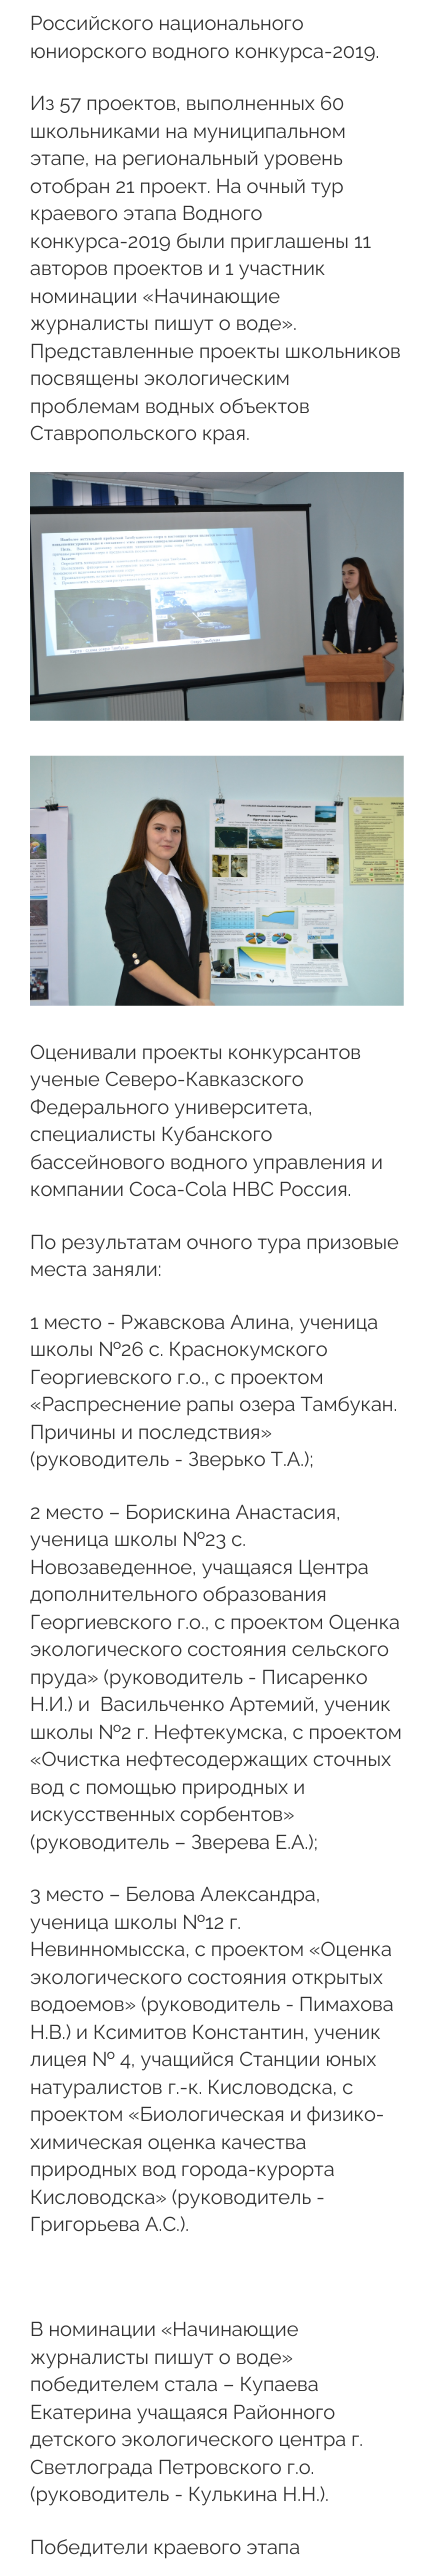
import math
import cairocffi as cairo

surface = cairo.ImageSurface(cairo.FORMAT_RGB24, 433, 2568)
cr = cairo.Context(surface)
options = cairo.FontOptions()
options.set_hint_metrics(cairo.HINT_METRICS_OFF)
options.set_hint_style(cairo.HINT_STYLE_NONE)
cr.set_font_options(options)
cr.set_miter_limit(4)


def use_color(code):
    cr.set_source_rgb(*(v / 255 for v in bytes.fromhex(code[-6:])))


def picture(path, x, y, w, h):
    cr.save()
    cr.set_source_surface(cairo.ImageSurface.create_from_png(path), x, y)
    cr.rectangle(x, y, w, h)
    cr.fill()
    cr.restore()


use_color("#ffffff")
cr.paint()
cr.select_font_face("Raleway")
cr.set_font_size(20)
use_color("#333333")
cr.move_to(30, 30)
cr.show_text("Российского национального")
cr.move_to(30, 58)
cr.show_text("юниорского водного конкурса-2019.")
cr.move_to(30, 110)
cr.show_text("Из 57 проектов, выполненных 60")
cr.move_to(30, 138)
cr.show_text("школьниками на муниципальном")
cr.move_to(30, 165)
cr.show_text("этапе, на региональный уровень")
cr.move_to(30, 193)
cr.show_text("отобран 21 проект. На очный тур")
cr.move_to(30, 220)
cr.show_text("краевого этапа Водного")
cr.move_to(30, 248)
cr.show_text("конкурса-2019 были приглашены 11")
cr.move_to(30, 275)
cr.show_text("авторов проектов и 1 участник")
cr.move_to(30, 303)
cr.show_text("номинации «Начинающие")
cr.move_to(30, 330)
cr.show_text("журналисты пишут о воде».")
cr.move_to(30, 358)
cr.show_text("Представленные проекты школьников")
cr.move_to(30, 385)
cr.show_text("посвящены экологическим")
cr.move_to(30, 413)
cr.show_text("проблемам водных объектов")
cr.move_to(30, 440)
cr.show_text("Ставропольского края.")
picture("img1.png", 30, 472, 374, 249)
picture("img2.png", 30, 755, 374, 251)
cr.move_to(30, 1059)
cr.show_text("Оценивали проекты конкурсантов")
cr.move_to(30, 1086)
cr.show_text("ученые Северо-Кавказского")
cr.move_to(30, 1114)
cr.show_text("Федерального университета,")
cr.move_to(30, 1141)
cr.show_text("специалисты Кубанского")
cr.move_to(30, 1169)
cr.show_text("бассейнового водного управления и")
cr.move_to(30, 1196)
cr.show_text("компании Coca-Cola HBC Россия.")
cr.move_to(30, 1249)
cr.show_text("По результатам очного тура призовые")
cr.move_to(30, 1276)
cr.show_text("места заняли:")
cr.move_to(30, 1329)
cr.show_text("1 место - Ржавскова Алина, ученица")
cr.move_to(30, 1356)
cr.show_text("школы №26 с. Краснокумского")
cr.move_to(30, 1384)
cr.show_text("Георгиевского г.о., с проектом")
cr.move_to(30, 1411)
cr.show_text("«Распреснение рапы озера Тамбукан.")
cr.move_to(30, 1439)
cr.show_text("Причины и последствия»")
cr.move_to(30, 1466)
cr.show_text("(руководитель - Зверько Т.А.);")
cr.move_to(30, 1519)
cr.show_text("2 место – Борискина Анастасия,")
cr.move_to(30, 1546)
cr.show_text("ученица школы №23 с.")
cr.move_to(30, 1574)
cr.show_text("Новозаведенное, учащаяся Центра")
cr.move_to(30, 1601)
cr.show_text("дополнительного образования")
cr.move_to(30, 1629)
cr.show_text("Георгиевского г.о., с проектом Оценка")
cr.move_to(30, 1656)
cr.show_text("экологического состояния сельского")
cr.move_to(30, 1684)
cr.show_text("пруда» (руководитель - Писаренко")
cr.move_to(30, 1711)
cr.show_text("Н.И.) и  Васильченко Артемий, ученик")
cr.move_to(30, 1739)
cr.show_text("школы №2 г. Нефтекумска, с проектом")
cr.move_to(30, 1766)
cr.show_text("«Очистка нефтесодержащих сточных")
cr.move_to(30, 1794)
cr.show_text("вод с помощью природных и")
cr.move_to(30, 1821)
cr.show_text("искусственных сорбентов»")
cr.move_to(30, 1849)
cr.show_text("(руководитель – Зверева Е.А.);")
cr.move_to(30, 1901)
cr.show_text("3 место – Белова Александра,")
cr.move_to(30, 1929)
cr.show_text("ученица школы №12 г.")
cr.move_to(30, 1956)
cr.show_text("Невинномысска, с проектом «Оценка")
cr.move_to(30, 1984)
cr.show_text("экологического состояния открытых")
cr.move_to(30, 2011)
cr.show_text("водоемов» (руководитель - Пимахова")
cr.move_to(30, 2039)
cr.show_text("Н.В.) и Ксимитов Константин, ученик")
cr.move_to(30, 2066)
cr.show_text("лицея № 4, учащийся Станции юных")
cr.move_to(30, 2094)
cr.show_text("натуралистов г.-к. Кисловодска, с")
cr.move_to(30, 2121)
cr.show_text("проектом «Биологическая и физико-")
cr.move_to(30, 2149)
cr.show_text("химическая оценка качества")
cr.move_to(30, 2176)
cr.show_text("природных вод города-курорта")
cr.move_to(30, 2204)
cr.show_text("Кисловодска» (руководитель -")
cr.move_to(30, 2231)
cr.show_text("Григорьева А.С.).")
cr.move_to(30, 2336)
cr.show_text("В номинации «Начинающие")
cr.move_to(30, 2364)
cr.show_text("журналисты пишут о воде»")
cr.move_to(30, 2391)
cr.show_text("победителем стала – Купаева")
cr.move_to(30, 2419)
cr.show_text("Екатерина учащаяся Районного")
cr.move_to(30, 2446)
cr.show_text("детского экологического центра г.")
cr.move_to(30, 2474)
cr.show_text("Светлограда Петровского г.о.")
cr.move_to(30, 2501)
cr.show_text("(руководитель - Кулькина Н.Н.).")
cr.move_to(30, 2554)
cr.show_text("Победители краевого этапа")
surface.write_to_png("result.png")
